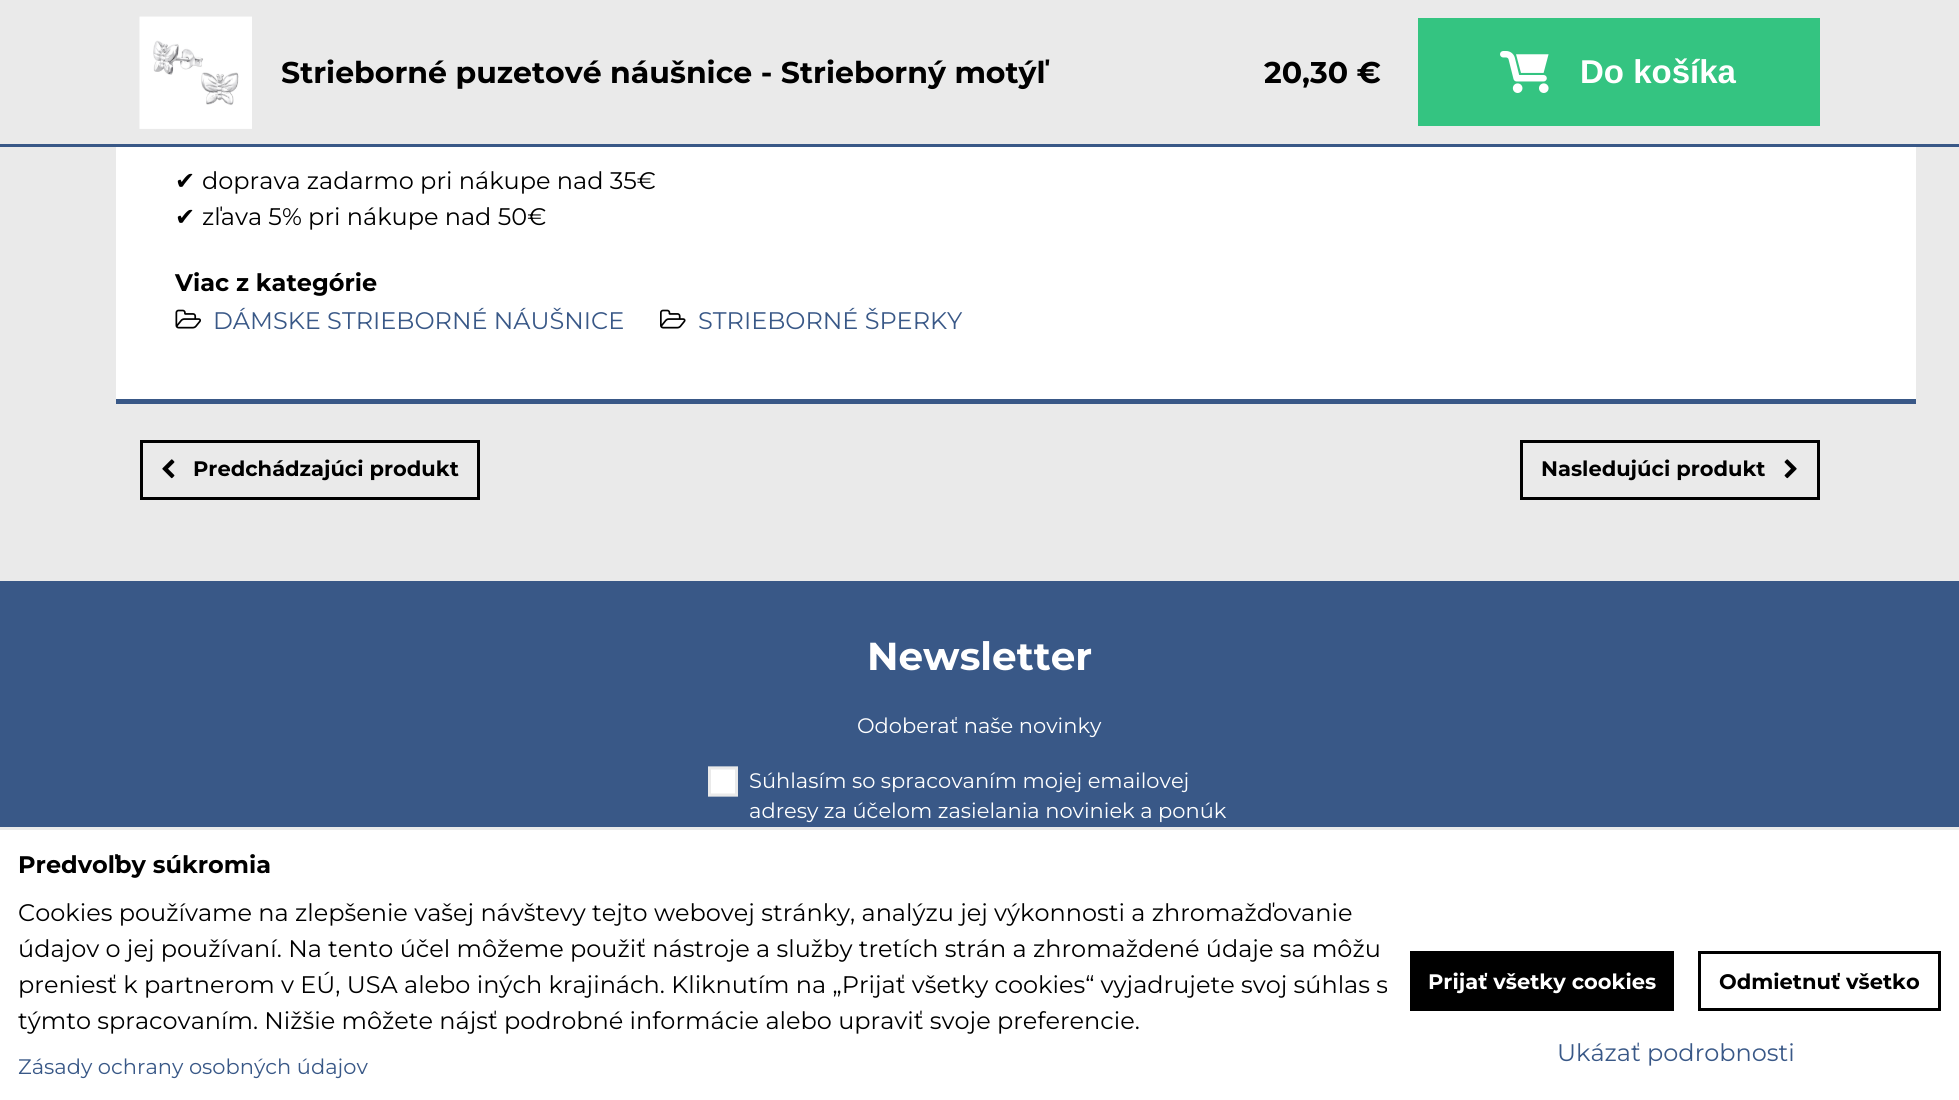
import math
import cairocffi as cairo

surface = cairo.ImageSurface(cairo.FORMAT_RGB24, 1959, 1100)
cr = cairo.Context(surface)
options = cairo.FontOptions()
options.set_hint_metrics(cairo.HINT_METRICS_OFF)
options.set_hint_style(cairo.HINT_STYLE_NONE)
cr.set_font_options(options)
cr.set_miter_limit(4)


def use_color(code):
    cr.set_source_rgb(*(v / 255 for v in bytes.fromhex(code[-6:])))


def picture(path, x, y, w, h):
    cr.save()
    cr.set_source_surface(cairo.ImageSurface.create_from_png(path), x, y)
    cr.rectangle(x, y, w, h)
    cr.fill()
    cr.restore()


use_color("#eaeaea")
cr.paint()
use_color("#395887")
cr.rectangle(0, 144, 1959, 3)
cr.fill()
picture("img1.png", 139, 16, 113, 113)
cr.select_font_face("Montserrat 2 Thin")
cr.set_font_size(30)
use_color("#000000")
cr.move_to(281, 83)
cr.show_text("Strieborné puzetové náušnice - Strieborný motýľ")
cr.move_to(1264, 83)
cr.show_text("20,30 €")
use_color("#34c481")
cr.rectangle(1418, 18, 402, 108)
cr.fill()
picture("img2.png", 1500, 51, 49, 42)
cr.select_font_face("Liberation Sans", cairo.FONT_SLANT_NORMAL, cairo.FONT_WEIGHT_BOLD)
cr.set_font_size(33)
use_color("#ffffff")
cr.move_to(1580, 83)
cr.show_text("Do košíka")
cr.rectangle(116, 147, 1800, 252)
cr.fill()
use_color("#395887")
cr.rectangle(116, 399, 1800, 5)
cr.fill()
cr.select_font_face("DejaVu Sans")
cr.set_font_size(24)
use_color("#000000")
cr.move_to(175, 189)
cr.show_text("✔")
cr.select_font_face("Montserrat Thin")
cr.move_to(202, 189)
cr.show_text("doprava zadarmo pri nákupe nad 35€")
cr.select_font_face("DejaVu Sans")
cr.move_to(175, 225)
cr.show_text("✔")
cr.select_font_face("Montserrat Thin")
cr.move_to(202, 225)
cr.show_text("zľava 5% pri nákupe nad 50€")
cr.select_font_face("Montserrat 2 Thin")
cr.move_to(175, 291)
cr.show_text("Viac z kategórie")
picture("img3.png", 175, 309, 26, 20)
cr.select_font_face("Montserrat Thin")
use_color("#395887")
cr.move_to(213, 329)
cr.show_text("DÁMSKE STRIEBORNÉ NÁUŠNICE")
picture("img4.png", 660, 309, 26, 20)
cr.move_to(698, 329)
cr.show_text("STRIEBORNÉ ŠPERKY")
cr.rectangle(141.5, 441.5, 337, 57)
use_color("#000000")
cr.set_line_width(3)
cr.stroke()
picture("img5.png", 162, 459, 13, 20)
cr.select_font_face("Montserrat 2 Thin")
cr.set_font_size(21)
cr.move_to(193, 476)
cr.show_text("Predchádzajúci produkt")
cr.rectangle(1521.5, 441.5, 297, 57)
cr.stroke()
cr.move_to(1541, 476)
cr.show_text("Nasledujúci produkt")
picture("img6.png", 1784, 459, 13, 20)
use_color("#395887")
cr.rectangle(0, 581, 1959, 246)
cr.fill()
cr.set_font_size(39)
use_color("#ffffff")
cr.move_to(867, 670)
cr.show_text("Newsletter")
cr.select_font_face("Montserrat Thin")
cr.set_font_size(21)
cr.move_to(857, 733)
cr.show_text("Odoberať naše novinky")
picture("img7.png", 708, 766, 30, 31)
cr.move_to(749, 788)
cr.show_text("Súhlasím so spracovaním mojej emailovej")
cr.move_to(749, 818)
cr.show_text("adresy za účelom zasielania noviniek a ponúk")
cr.rectangle(0, 830, 1959, 270)
cr.fill()
cr.select_font_face("Montserrat 2 Thin")
cr.set_font_size(24)
use_color("#000000")
cr.move_to(18, 873)
cr.show_text("Predvoľby súkromia")
cr.select_font_face("Montserrat Thin")
cr.move_to(18, 921)
cr.show_text("Cookies používame na zlepšenie vašej návštevy tejto webovej stránky, analýzu jej výkonnosti a zhromažďovanie")
cr.move_to(18, 957)
cr.show_text("údajov o jej používaní. Na tento účel môžeme použiť nástroje a služby tretích strán a zhromaždené údaje sa môžu")
cr.move_to(18, 993)
cr.show_text("preniesť k partnerom v EÚ, USA alebo iných krajinách. Kliknutím na „Prijať všetky cookies“ vyjadrujete svoj súhlas s")
cr.move_to(18, 1029)
cr.show_text("týmto spracovaním. Nižšie môžete nájsť podrobné informácie alebo upraviť svoje preferencie.")
cr.set_font_size(21)
use_color("#395887")
cr.move_to(18, 1074)
cr.show_text("Zásady ochrany osobných údajov")
use_color("#000000")
cr.rectangle(1410, 951, 264, 60)
cr.fill()
cr.select_font_face("Montserrat 2 Thin")
use_color("#ffffff")
cr.move_to(1428, 989)
cr.show_text("Prijať všetky cookies")
cr.rectangle(1699.5, 952.5, 240, 57)
use_color("#000000")
cr.stroke()
cr.move_to(1719, 989)
cr.show_text("Odmietnuť všetko")
cr.select_font_face("Montserrat Thin")
cr.set_font_size(24)
use_color("#395887")
cr.move_to(1557, 1061)
cr.show_text("Ukázať podrobnosti")
surface.write_to_png("result.png")
